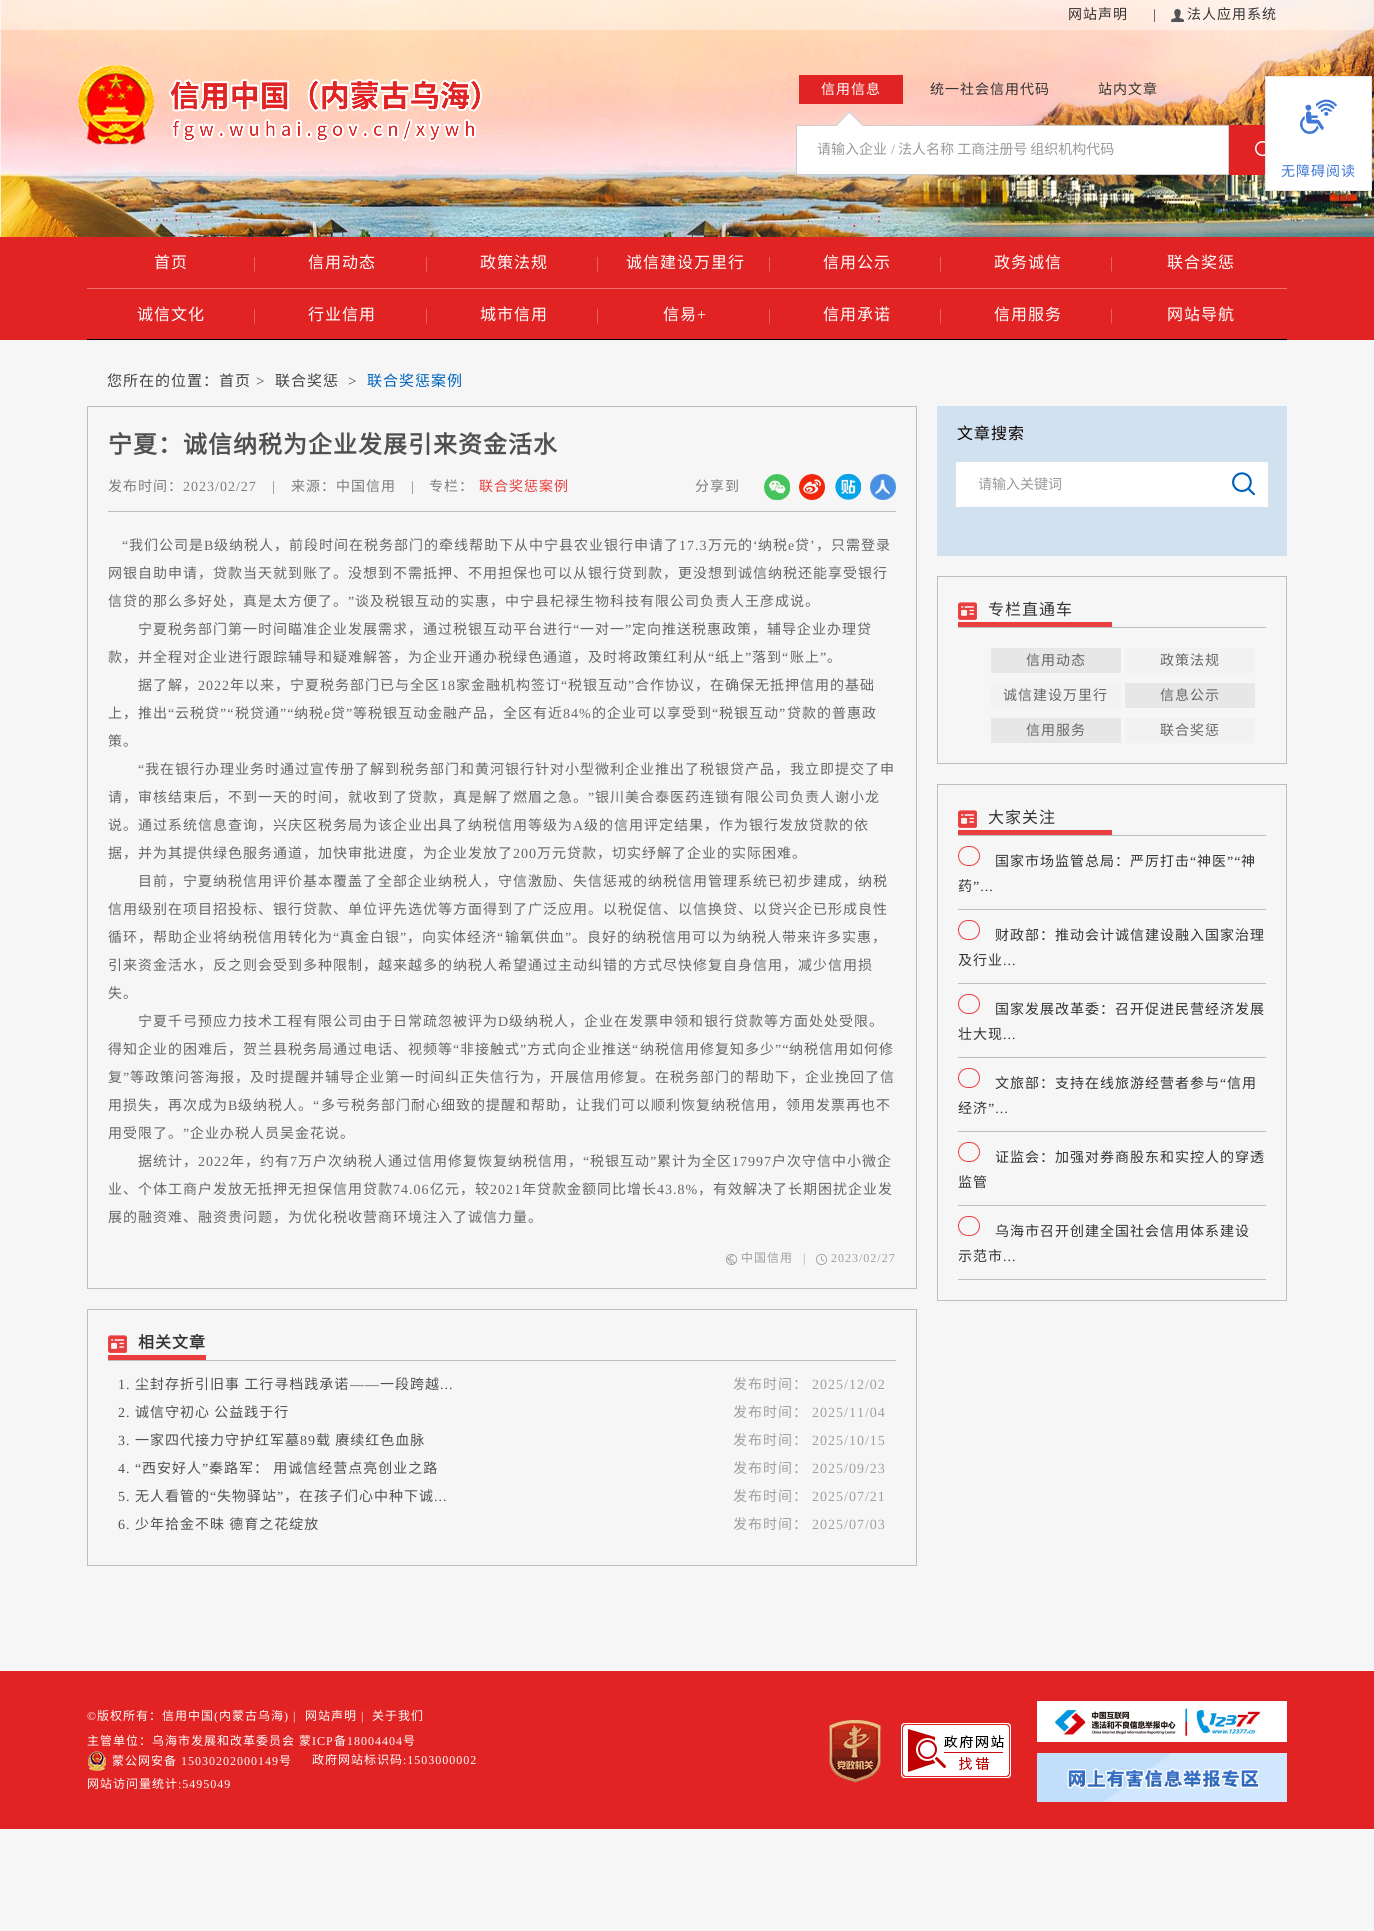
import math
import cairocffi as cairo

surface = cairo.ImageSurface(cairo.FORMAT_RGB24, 1374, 1931)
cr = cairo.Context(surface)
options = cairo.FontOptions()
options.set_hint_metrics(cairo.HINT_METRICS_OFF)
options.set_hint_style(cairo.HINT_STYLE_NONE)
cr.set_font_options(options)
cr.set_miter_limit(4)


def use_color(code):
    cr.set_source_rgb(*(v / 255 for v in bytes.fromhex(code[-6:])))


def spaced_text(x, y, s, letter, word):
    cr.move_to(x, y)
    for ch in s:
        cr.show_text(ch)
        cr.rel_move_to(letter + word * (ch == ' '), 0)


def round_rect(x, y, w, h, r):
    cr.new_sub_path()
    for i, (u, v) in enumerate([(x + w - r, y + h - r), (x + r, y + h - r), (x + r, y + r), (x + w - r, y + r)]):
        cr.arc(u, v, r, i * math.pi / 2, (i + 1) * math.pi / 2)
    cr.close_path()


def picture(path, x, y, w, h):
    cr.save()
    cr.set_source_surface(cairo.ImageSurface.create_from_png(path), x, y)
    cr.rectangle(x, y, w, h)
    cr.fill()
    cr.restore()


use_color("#f6f6f6")
cr.paint()
picture("img1.png", 0, 0, 1374, 237)
cr.set_source_rgba(1, 1, 1, 0.4)
cr.rectangle(0, 0, 1374, 30)
cr.fill()
cr.select_font_face("Noto Sans CJK SC")
cr.set_font_size(14)
use_color("#333333")
spaced_text(1068, 19, "网站声明", 1, 0)
cr.select_font_face("Liberation Serif")
spaced_text(1153, 19, "|", 1, 0)
picture("img2.png", 1171, 9, 13, 13)
cr.select_font_face("Noto Sans CJK SC")
spaced_text(1187, 19, "法人应用系统", 1, 0)
picture("img3.png", 78, 65, 404, 80)
use_color("#e22323")
cr.rectangle(799, 75, 104, 29)
cr.fill()
use_color("#ffffff")
spaced_text(821, 94, "信用信息", 1, 0)
use_color("#333333")
spaced_text(930, 94, "统一社会信用代码", 1, 0)
spaced_text(1098, 94, "站内文章", 1, 0)
use_color("#ffffff")
cr.rectangle(796.5, 125.5, 432, 49)
cr.fill_preserve()
use_color("#cccccc")
cr.set_line_width(1)
cr.stroke()
picture("img4.png", 835, 111, 29, 15)
use_color("#999999")
cr.move_to(817, 154)
cr.show_text("请输入企业")
cr.select_font_face("Liberation Serif")
cr.move_to(891, 154)
cr.show_text("/")
cr.select_font_face("Noto Sans CJK SC")
cr.move_to(898, 154)
cr.show_text("法人名称 工商注册号 组织机构代码")
use_color("#e22323")
cr.rectangle(1229, 125, 36, 50)
cr.fill()
picture("img5.png", 1255, 141, 10, 16)
use_color("#ffffff")
cr.rectangle(1266, 77, 105, 113)
cr.fill()
picture("img6.png", 1300, 99, 37, 35)
cr.rectangle(1265.5, 76.5, 106, 114)
use_color("#e8e8e8")
cr.stroke()
use_color("#4078d6")
spaced_text(1281, 176, "无障碍阅读", 1, 0)
use_color("#e22323")
cr.rectangle(0, 237, 1374, 103)
cr.fill()
use_color("#ec7272")
cr.rectangle(87, 288, 1200, 1)
cr.fill()
cr.set_font_size(16)
use_color("#ffffff")
spaced_text(154, 268, "首页", 1, 0)
cr.select_font_face("Liberation Serif")
use_color("#ec7272")
spaced_text(253, 268, "|", 1, 0)
cr.select_font_face("Noto Sans CJK SC")
use_color("#ffffff")
spaced_text(308, 268, "信用动态", 1, 0)
cr.select_font_face("Liberation Serif")
use_color("#ec7272")
spaced_text(425, 268, "|", 1, 0)
cr.select_font_face("Noto Sans CJK SC")
use_color("#ffffff")
spaced_text(480, 268, "政策法规", 1, 0)
cr.select_font_face("Liberation Serif")
use_color("#ec7272")
spaced_text(596, 268, "|", 1, 0)
cr.select_font_face("Noto Sans CJK SC")
use_color("#ffffff")
spaced_text(626, 268, "诚信建设万里行", 1, 0)
cr.select_font_face("Liberation Serif")
use_color("#ec7272")
spaced_text(768, 268, "|", 1, 0)
cr.select_font_face("Noto Sans CJK SC")
use_color("#ffffff")
spaced_text(823, 268, "信用公示", 1, 0)
cr.select_font_face("Liberation Serif")
use_color("#ec7272")
spaced_text(939, 268, "|", 1, 0)
cr.select_font_face("Noto Sans CJK SC")
use_color("#ffffff")
spaced_text(994, 268, "政务诚信", 1, 0)
cr.select_font_face("Liberation Serif")
use_color("#ec7272")
spaced_text(1110, 268, "|", 1, 0)
cr.select_font_face("Noto Sans CJK SC")
use_color("#ffffff")
spaced_text(1167, 268, "联合奖惩", 1, 0)
use_color("#000000")
cr.rectangle(87, 339, 1200, 1)
cr.fill()
use_color("#ffffff")
spaced_text(137, 320, "诚信文化", 1, 0)
cr.select_font_face("Liberation Serif")
use_color("#ec7272")
spaced_text(253, 320, "|", 1, 0)
cr.select_font_face("Noto Sans CJK SC")
use_color("#ffffff")
spaced_text(308, 320, "行业信用", 1, 0)
cr.select_font_face("Liberation Serif")
use_color("#ec7272")
spaced_text(425, 320, "|", 1, 0)
cr.select_font_face("Noto Sans CJK SC")
use_color("#ffffff")
spaced_text(480, 320, "城市信用", 1, 0)
cr.select_font_face("Liberation Serif")
use_color("#ec7272")
spaced_text(596, 320, "|", 1, 0)
cr.select_font_face("Noto Sans CJK SC")
use_color("#ffffff")
spaced_text(663, 320, "信易", 1, 0)
cr.select_font_face("Liberation Serif")
spaced_text(697, 320, "+", 1, 0)
use_color("#ec7272")
spaced_text(768, 320, "|", 1, 0)
cr.select_font_face("Noto Sans CJK SC")
use_color("#ffffff")
spaced_text(823, 320, "信用承诺", 1, 0)
cr.select_font_face("Liberation Serif")
use_color("#ec7272")
spaced_text(939, 320, "|", 1, 0)
cr.select_font_face("Noto Sans CJK SC")
use_color("#ffffff")
spaced_text(994, 320, "信用服务", 1, 0)
cr.select_font_face("Liberation Serif")
use_color("#ec7272")
spaced_text(1110, 320, "|", 1, 0)
cr.select_font_face("Noto Sans CJK SC")
use_color("#ffffff")
spaced_text(1167, 320, "网站导航", 1, 0)
cr.set_font_size(15)
use_color("#444444")
spaced_text(107, 386, "您所在的位置：首页", 1, 0)
cr.select_font_face("Liberation Serif")
spaced_text(256, 386, ">", 1, 0)
cr.select_font_face("Noto Sans CJK SC")
spaced_text(275, 386, "联合奖惩", 1, 0)
cr.select_font_face("Liberation Serif")
spaced_text(348, 386, ">", 1, 0)
cr.select_font_face("Noto Sans CJK SC")
use_color("#0063ba")
spaced_text(367, 386, "联合奖惩案例", 1, 0)
cr.rectangle(87.5, 406.5, 829, 882)
use_color("#bebebe")
cr.stroke()
cr.select_font_face("Noto Sans CJK SC", cairo.FONT_SLANT_NORMAL, cairo.FONT_WEIGHT_BOLD)
cr.set_font_size(24)
use_color("#4f5050")
spaced_text(108, 453, "宁夏：诚信纳税为企业发展引来资金活水", 1, 0)
use_color("#bebebe")
cr.rectangle(108, 511, 788, 1)
cr.fill()
cr.select_font_face("Noto Sans CJK SC")
cr.set_font_size(14)
use_color("#7c7c7c")
spaced_text(108, 491, "发布时间：", 1, 0)
cr.select_font_face("Liberation Serif")
spaced_text(183, 491, "2023/02/27", 1, 0)
spaced_text(272, 491, "|", 1, 0)
cr.select_font_face("Noto Sans CJK SC")
spaced_text(291, 491, "来源：中国信用", 1, 0)
cr.select_font_face("Liberation Serif")
spaced_text(411, 491, "|", 1, 0)
cr.select_font_face("Noto Sans CJK SC")
spaced_text(429, 491, "专栏：", 1, 0)
use_color("#ea3e3e")
spaced_text(479, 491, "联合奖惩案例", 1, 0)
use_color("#7c7c7c")
spaced_text(695, 491, "分享到", 1, 0)
picture("img7.png", 764, 474, 26, 26)
picture("img8.png", 799, 474, 26, 26)
picture("img9.png", 835, 474, 26, 26)
picture("img10.png", 870, 474, 26, 26)
cr.select_font_face("Liberation Serif")
use_color("#666666")
spaced_text(122, 550, "“", 1, 0)
cr.select_font_face("Noto Sans CJK SC")
spaced_text(129, 550, "我们公司是", 1, 0)
cr.select_font_face("Liberation Serif")
spaced_text(204, 550, "B", 1, 0)
cr.select_font_face("Noto Sans CJK SC")
spaced_text(214, 550, "级纳税人，前段时间在税务部门的牵线帮助下从中宁县农业银行申请了", 1, 0)
cr.select_font_face("Liberation Serif")
spaced_text(679, 550, "17.3", 1, 0)
cr.select_font_face("Noto Sans CJK SC")
spaced_text(708, 550, "万元的", 1, 0)
cr.select_font_face("Liberation Serif")
spaced_text(753, 550, "‘", 1, 0)
cr.select_font_face("Noto Sans CJK SC")
spaced_text(758, 550, "纳税", 1, 0)
spaced_text(795, 550, "贷", 1, 0)
cr.select_font_face("Liberation Serif")
spaced_text(810, 550, "’", 1, 0)
cr.select_font_face("Noto Sans CJK SC")
spaced_text(816, 550, "，只需登录", 1, 0)
cr.select_font_face("Liberation Serif")
spaced_text(788, 550, "e", 1, 0)
cr.select_font_face("Noto Sans CJK SC")
spaced_text(108, 578, "网银自助申请，贷款当天就到账了。没想到不需抵押、不用担保也可以从银行贷到款，更没想到诚信纳税还能享受银行", 1, 0)
spaced_text(108, 606, "信贷的那么多好处，真是太方便了。", 1, 0)
cr.select_font_face("Liberation Serif")
spaced_text(348, 606, "”", 1, 0)
cr.select_font_face("Noto Sans CJK SC")
spaced_text(355, 606, "谈及税银互动的实惠，中宁县杞禄生物科技有限公司负责人王彦成说。", 1, 0)
spaced_text(138, 634, "宁夏税务部门第一时间瞄准企业发展需求，通过税银互动平台进行", 1, 0)
cr.select_font_face("Liberation Serif")
spaced_text(573, 634, "“", 1, 0)
cr.select_font_face("Noto Sans CJK SC")
spaced_text(580, 634, "一对一", 1, 0)
cr.select_font_face("Liberation Serif")
spaced_text(625, 634, "”", 1, 0)
cr.select_font_face("Noto Sans CJK SC")
spaced_text(632, 634, "定向推送税惠政策，辅导企业办理贷", 1, 0)
spaced_text(108, 662, "款，并全程对企业进行跟踪辅导和疑难解答，为企业开通办税绿色通道，及时将政策红利从", 1, 0)
cr.select_font_face("Liberation Serif")
spaced_text(708, 662, "“", 1, 0)
cr.select_font_face("Noto Sans CJK SC")
spaced_text(715, 662, "纸上", 1, 0)
cr.select_font_face("Liberation Serif")
spaced_text(745, 662, "”", 1, 0)
cr.select_font_face("Noto Sans CJK SC")
spaced_text(752, 662, "落到", 1, 0)
cr.select_font_face("Liberation Serif")
spaced_text(782, 662, "“", 1, 0)
cr.select_font_face("Noto Sans CJK SC")
spaced_text(790, 662, "账上", 1, 0)
cr.select_font_face("Liberation Serif")
spaced_text(820, 662, "”", 1, 0)
cr.select_font_face("Noto Sans CJK SC")
spaced_text(827, 662, "。", 1, 0)
spaced_text(138, 690, "据了解，", 1, 0)
cr.select_font_face("Liberation Serif")
spaced_text(198, 690, "2022", 1, 0)
cr.select_font_face("Noto Sans CJK SC")
spaced_text(230, 690, "年以来，宁夏税务部门已与全区", 1, 0)
cr.select_font_face("Liberation Serif")
spaced_text(440, 690, "18", 1, 0)
cr.select_font_face("Noto Sans CJK SC")
spaced_text(456, 690, "家金融机构签订", 1, 0)
cr.select_font_face("Liberation Serif")
spaced_text(561, 690, "“", 1, 0)
cr.select_font_face("Noto Sans CJK SC")
spaced_text(568, 690, "税银互动", 1, 0)
cr.select_font_face("Liberation Serif")
spaced_text(628, 690, "”", 1, 0)
cr.select_font_face("Noto Sans CJK SC")
spaced_text(635, 690, "合作协议，在确保无抵押信用的基础", 1, 0)
spaced_text(108, 718, "上，推出", 1, 0)
cr.select_font_face("Liberation Serif")
spaced_text(168, 718, "“", 1, 0)
cr.select_font_face("Noto Sans CJK SC")
spaced_text(175, 718, "云税贷", 1, 0)
cr.select_font_face("Liberation Serif")
spaced_text(220, 718, "”“", 1, 0)
cr.select_font_face("Noto Sans CJK SC")
spaced_text(235, 718, "税贷通", 1, 0)
cr.select_font_face("Liberation Serif")
spaced_text(280, 718, "”“", 1, 0)
cr.select_font_face("Noto Sans CJK SC")
spaced_text(294, 718, "纳税", 1, 0)
spaced_text(331, 718, "贷", 1, 0)
cr.select_font_face("Liberation Serif")
spaced_text(346, 718, "”", 1, 0)
cr.select_font_face("Noto Sans CJK SC")
spaced_text(353, 718, "等税银互动金融产品，全区有近", 1, 0)
cr.select_font_face("Liberation Serif")
spaced_text(563, 718, "84%", 1, 0)
cr.select_font_face("Noto Sans CJK SC")
spaced_text(592, 718, "的企业可以享受到", 1, 0)
cr.select_font_face("Liberation Serif")
spaced_text(712, 718, "“", 1, 0)
cr.select_font_face("Noto Sans CJK SC")
spaced_text(719, 718, "税银互动", 1, 0)
cr.select_font_face("Liberation Serif")
spaced_text(779, 718, "”", 1, 0)
cr.select_font_face("Noto Sans CJK SC")
spaced_text(787, 718, "贷款的普惠政", 1, 0)
cr.select_font_face("Liberation Serif")
spaced_text(324, 718, "e", 1, 0)
cr.select_font_face("Noto Sans CJK SC")
spaced_text(108, 746, "策。", 1, 0)
cr.select_font_face("Liberation Serif")
spaced_text(138, 774, "“", 1, 0)
cr.select_font_face("Noto Sans CJK SC")
spaced_text(145, 774, "我在银行办理业务时通过宣传册了解到税务部门和黄河银行针对小型微利企业推出了税银贷产品，我立即提交了申", 1, 0)
spaced_text(108, 802, "请，审核结束后，不到一天的时间，就收到了贷款，真是解了燃眉之急。", 1, 0)
cr.select_font_face("Liberation Serif")
spaced_text(588, 802, "”", 1, 0)
cr.select_font_face("Noto Sans CJK SC")
spaced_text(595, 802, "银川美合泰医药连锁有限公司负责人谢小龙", 1, 0)
spaced_text(108, 830, "说。通过系统信息查询，兴庆区税务局为该企业出具了纳税信用等级为", 1, 0)
cr.select_font_face("Liberation Serif")
spaced_text(573, 830, "A", 1, 0)
cr.select_font_face("Noto Sans CJK SC")
spaced_text(584, 830, "级的信用评定结果，作为银行发放贷款的依", 1, 0)
spaced_text(108, 858, "据，并为其提供绿色服务通道，加快审批进度，为企业发放了", 1, 0)
cr.select_font_face("Liberation Serif")
spaced_text(513, 858, "200", 1, 0)
cr.select_font_face("Noto Sans CJK SC")
spaced_text(537, 858, "万元贷款，切实纾解了企业的实际困难。", 1, 0)
spaced_text(138, 886, "目前，宁夏纳税信用评价基本覆盖了全部企业纳税人，守信激励、失信惩戒的纳税信用管理系统已初步建成，纳税", 1, 0)
spaced_text(108, 914, "信用级别在项目招投标、银行贷款、单位评先选优等方面得到了广泛应用。以税促信、以信换贷、以贷兴企已形成良性", 1, 0)
spaced_text(108, 942, "循环，帮助企业将纳税信用转化为", 1, 0)
cr.select_font_face("Liberation Serif")
spaced_text(333, 942, "“", 1, 0)
cr.select_font_face("Noto Sans CJK SC")
spaced_text(340, 942, "真金白银", 1, 0)
cr.select_font_face("Liberation Serif")
spaced_text(400, 942, "”", 1, 0)
cr.select_font_face("Noto Sans CJK SC")
spaced_text(407, 942, "，向实体经济", 1, 0)
cr.select_font_face("Liberation Serif")
spaced_text(497, 942, "“", 1, 0)
cr.select_font_face("Noto Sans CJK SC")
spaced_text(505, 942, "输氧供血", 1, 0)
cr.select_font_face("Liberation Serif")
spaced_text(565, 942, "”", 1, 0)
cr.select_font_face("Noto Sans CJK SC")
spaced_text(572, 942, "。良好的纳税信用可以为纳税人带来许多实惠，", 1, 0)
spaced_text(108, 970, "引来资金活水，反之则会受到多种限制，越来越多的纳税人希望通过主动纠错的方式尽快修复自身信用，减少信用损", 1, 0)
spaced_text(108, 998, "失。", 1, 0)
spaced_text(138, 1026, "宁夏千弓预应力技术工程有限公司由于日常疏忽被评为", 1, 0)
cr.select_font_face("Liberation Serif")
spaced_text(498, 1026, "D", 1, 0)
cr.select_font_face("Noto Sans CJK SC")
spaced_text(509, 1026, "级纳税人，企业在发票申领和银行贷款等方面处处受限。", 1, 0)
spaced_text(108, 1054, "得知企业的困难后，贺兰县税务局通过电话、视频等", 1, 0)
cr.select_font_face("Liberation Serif")
spaced_text(453, 1054, "“", 1, 0)
cr.select_font_face("Noto Sans CJK SC")
spaced_text(460, 1054, "非接触式", 1, 0)
cr.select_font_face("Liberation Serif")
spaced_text(520, 1054, "”", 1, 0)
cr.select_font_face("Noto Sans CJK SC")
spaced_text(527, 1054, "方式向企业推送", 1, 0)
cr.select_font_face("Liberation Serif")
spaced_text(632, 1054, "“", 1, 0)
cr.select_font_face("Noto Sans CJK SC")
spaced_text(640, 1054, "纳税信用修复知多少", 1, 0)
cr.select_font_face("Liberation Serif")
spaced_text(775, 1054, "”“", 1, 0)
cr.select_font_face("Noto Sans CJK SC")
spaced_text(789, 1054, "纳税信用如何修", 1, 0)
spaced_text(108, 1082, "复", 1, 0)
cr.select_font_face("Liberation Serif")
spaced_text(123, 1082, "”", 1, 0)
cr.select_font_face("Noto Sans CJK SC")
spaced_text(130, 1082, "等政策问答海报，及时提醒并辅导企业第一时间纠正失信行为，开展信用修复。在税务部门的帮助下，企业挽回了信", 1, 0)
spaced_text(108, 1110, "用损失，再次成为", 1, 0)
cr.select_font_face("Liberation Serif")
spaced_text(228, 1110, "B", 1, 0)
cr.select_font_face("Noto Sans CJK SC")
spaced_text(238, 1110, "级纳税人。", 1, 0)
cr.select_font_face("Liberation Serif")
spaced_text(313, 1110, "“", 1, 0)
cr.select_font_face("Noto Sans CJK SC")
spaced_text(321, 1110, "多亏税务部门耐心细致的提醒和帮助，让我们可以顺利恢复纳税信用，领用发票再也不", 1, 0)
spaced_text(108, 1138, "用受限了。", 1, 0)
cr.select_font_face("Liberation Serif")
spaced_text(183, 1138, "”", 1, 0)
cr.select_font_face("Noto Sans CJK SC")
spaced_text(190, 1138, "企业办税人员吴金花说。", 1, 0)
spaced_text(138, 1166, "据统计，", 1, 0)
cr.select_font_face("Liberation Serif")
spaced_text(198, 1166, "2022", 1, 0)
cr.select_font_face("Noto Sans CJK SC")
spaced_text(230, 1166, "年，约有", 1, 0)
cr.select_font_face("Liberation Serif")
spaced_text(290, 1166, "7", 1, 0)
cr.select_font_face("Noto Sans CJK SC")
spaced_text(298, 1166, "万户次纳税人通过信用修复恢复纳税信用，", 1, 0)
cr.select_font_face("Liberation Serif")
spaced_text(583, 1166, "“", 1, 0)
cr.select_font_face("Noto Sans CJK SC")
spaced_text(590, 1166, "税银互动", 1, 0)
cr.select_font_face("Liberation Serif")
spaced_text(650, 1166, "”", 1, 0)
cr.select_font_face("Noto Sans CJK SC")
spaced_text(657, 1166, "累计为全区", 1, 0)
cr.select_font_face("Liberation Serif")
spaced_text(732, 1166, "17997", 1, 0)
cr.select_font_face("Noto Sans CJK SC")
spaced_text(772, 1166, "户次守信中小微企", 1, 0)
spaced_text(108, 1194, "业、个体工商户发放无抵押无担保信用贷款", 1, 0)
cr.select_font_face("Liberation Serif")
spaced_text(393, 1194, "74.06", 1, 0)
cr.select_font_face("Noto Sans CJK SC")
spaced_text(430, 1194, "亿元，较", 1, 0)
cr.select_font_face("Liberation Serif")
spaced_text(490, 1194, "2021", 1, 0)
cr.select_font_face("Noto Sans CJK SC")
spaced_text(522, 1194, "年贷款金额同比增长", 1, 0)
cr.select_font_face("Liberation Serif")
spaced_text(657, 1194, "43.8%", 1, 0)
cr.select_font_face("Noto Sans CJK SC")
spaced_text(698, 1194, "，有效解决了长期困扰企业发", 1, 0)
spaced_text(108, 1222, "展的融资难、融资贵问题，为优化税收营商环境注入了诚信力量。", 1, 0)
picture("img11.png", 726, 1254, 11, 11)
cr.set_font_size(12)
use_color("#9f9f9f")
spaced_text(741, 1262, "中国信用", 1, 0)
cr.select_font_face("Liberation Serif")
spaced_text(803, 1262, "|", 1, 0)
picture("img12.png", 816, 1254, 11, 11)
spaced_text(831, 1262, "2023/02/27", 1, 0)
cr.rectangle(87.5, 1309.5, 829, 256)
use_color("#bebebe")
cr.stroke()
cr.rectangle(108, 1360, 788, 1)
cr.fill()
use_color("#ea3e3e")
cr.rectangle(108, 1355, 98, 5)
cr.fill()
picture("img13.png", 108, 1335, 19, 18)
cr.select_font_face("Noto Sans CJK SC", cairo.FONT_SLANT_NORMAL, cairo.FONT_WEIGHT_BOLD)
cr.set_font_size(16)
use_color("#333333")
spaced_text(138, 1348, "相关文章", 1, 0)
cr.select_font_face("Liberation Serif")
cr.set_font_size(14)
use_color("#4f5050")
spaced_text(118, 1389, "1.", 1, 0)
cr.select_font_face("Noto Sans CJK SC")
spaced_text(135, 1389, "尘封存折引旧事 工行寻档践承诺", 1, 0)
cr.select_font_face("Liberation Serif")
spaced_text(350, 1389, "——", 1, 0)
cr.select_font_face("Noto Sans CJK SC")
spaced_text(380, 1389, "一段跨越", 1, 0)
cr.select_font_face("Liberation Serif")
spaced_text(440, 1389, "...", 1, 0)
cr.select_font_face("Noto Sans CJK SC")
use_color("#9f9f9f")
spaced_text(733, 1389, "发布时间：", 1, 0)
cr.select_font_face("Liberation Serif")
spaced_text(812, 1389, "2025/12/02", 1, 0)
use_color("#4f5050")
spaced_text(118, 1417, "2.", 1, 0)
cr.select_font_face("Noto Sans CJK SC")
spaced_text(135, 1417, "诚信守初心 公益践于行", 1, 0)
use_color("#9f9f9f")
spaced_text(733, 1417, "发布时间：", 1, 0)
cr.select_font_face("Liberation Serif")
spaced_text(812, 1417, "2025/11/04", 1, 0)
use_color("#4f5050")
spaced_text(118, 1445, "3.", 1, 0)
cr.select_font_face("Noto Sans CJK SC")
spaced_text(135, 1445, "一家四代接力守护红军墓", 1, 0)
cr.select_font_face("Liberation Serif")
spaced_text(300, 1445, "89", 1, 0)
cr.select_font_face("Noto Sans CJK SC")
spaced_text(316, 1445, "载 赓续红色血脉", 1, 0)
use_color("#9f9f9f")
spaced_text(733, 1445, "发布时间：", 1, 0)
cr.select_font_face("Liberation Serif")
spaced_text(812, 1445, "2025/10/15", 1, 0)
use_color("#4f5050")
spaced_text(118, 1473, "4. “", 1, 0)
cr.select_font_face("Noto Sans CJK SC")
spaced_text(142, 1473, "西安好人", 1, 0)
cr.select_font_face("Liberation Serif")
spaced_text(202, 1473, "”", 1, 0)
cr.select_font_face("Noto Sans CJK SC")
spaced_text(209, 1473, "秦路军： 用诚信经营点亮创业之路", 1, 0)
use_color("#9f9f9f")
spaced_text(733, 1473, "发布时间：", 1, 0)
cr.select_font_face("Liberation Serif")
spaced_text(812, 1473, "2025/09/23", 1, 0)
use_color("#4f5050")
spaced_text(118, 1501, "5.", 1, 0)
cr.select_font_face("Noto Sans CJK SC")
spaced_text(135, 1501, "无人看管的", 1, 0)
cr.select_font_face("Liberation Serif")
spaced_text(210, 1501, "“", 1, 0)
cr.select_font_face("Noto Sans CJK SC")
spaced_text(217, 1501, "失物驿站", 1, 0)
cr.select_font_face("Liberation Serif")
spaced_text(277, 1501, "”", 1, 0)
cr.select_font_face("Noto Sans CJK SC")
spaced_text(284, 1501, "，在孩子们心中种下诚", 1, 0)
cr.select_font_face("Liberation Serif")
spaced_text(434, 1501, "...", 1, 0)
cr.select_font_face("Noto Sans CJK SC")
use_color("#9f9f9f")
spaced_text(733, 1501, "发布时间：", 1, 0)
cr.select_font_face("Liberation Serif")
spaced_text(812, 1501, "2025/07/21", 1, 0)
use_color("#4f5050")
spaced_text(118, 1529, "6.", 1, 0)
cr.select_font_face("Noto Sans CJK SC")
spaced_text(135, 1529, "少年拾金不昧 德育之花绽放", 1, 0)
use_color("#9f9f9f")
spaced_text(733, 1529, "发布时间：", 1, 0)
cr.select_font_face("Liberation Serif")
spaced_text(812, 1529, "2025/07/03", 1, 0)
use_color("#d1e1f0")
cr.rectangle(937, 406, 350, 150)
cr.fill()
cr.select_font_face("Noto Sans CJK SC")
cr.set_font_size(16)
use_color("#0c0300")
spaced_text(957, 439, "文章搜索", 1, 0)
use_color("#ffffff")
cr.rectangle(956, 462, 312, 45)
cr.fill()
cr.set_font_size(14)
use_color("#999999")
cr.move_to(978, 489)
cr.show_text("请输入关键词")
picture("img14.png", 1232, 472, 23, 23)
cr.rectangle(937.5, 576.5, 349, 187)
use_color("#bebebe")
cr.stroke()
cr.rectangle(958, 627, 308, 1)
cr.fill()
use_color("#ea3e3e")
cr.rectangle(958, 622, 154, 5)
cr.fill()
picture("img13.png", 958, 602, 19, 18)
cr.set_font_size(16)
use_color("#333333")
spaced_text(988, 615, "专栏直通车", 1, 0)
use_color("#e8e7e7")
cr.rectangle(991, 648, 130, 25)
cr.fill()
cr.set_font_size(14)
use_color("#666666")
spaced_text(1026, 665, "信用动态", 1, 0)
use_color("#f2f2f2")
cr.rectangle(1125, 648, 130, 25)
cr.fill()
use_color("#666666")
spaced_text(1160, 665, "政策法规", 1, 0)
use_color("#f2f2f2")
cr.rectangle(991, 683, 130, 25)
cr.fill()
use_color("#666666")
spaced_text(1003, 700, "诚信建设万里行", 1, 0)
use_color("#e8e7e7")
cr.rectangle(1125, 683, 130, 25)
cr.fill()
use_color("#666666")
spaced_text(1160, 700, "信息公示", 1, 0)
use_color("#e8e7e7")
cr.rectangle(991, 718, 130, 25)
cr.fill()
use_color("#666666")
spaced_text(1026, 735, "信用服务", 1, 0)
use_color("#f2f2f2")
cr.rectangle(1125, 718, 130, 25)
cr.fill()
use_color("#666666")
spaced_text(1160, 735, "联合奖惩", 1, 0)
cr.rectangle(937.5, 784.5, 349, 516)
use_color("#bebebe")
cr.stroke()
cr.rectangle(958, 835, 308, 1)
cr.fill()
use_color("#ea3e3e")
cr.rectangle(958, 830, 154, 5)
cr.fill()
picture("img13.png", 958, 810, 19, 18)
cr.set_font_size(16)
use_color("#333333")
spaced_text(988, 823, "大家关注", 1, 0)
use_color("#bebebe")
cr.rectangle(958, 909, 308, 1)
cr.fill()
round_rect(958.5, 846.5, 21, 19, 9.5)
use_color("#ea3e3e")
cr.stroke()
cr.set_font_size(14)
use_color("#333333")
spaced_text(995, 866, "国家市场监管总局：严厉打击", 1, 0)
cr.select_font_face("Liberation Serif")
spaced_text(1190, 866, "“", 1, 0)
cr.select_font_face("Noto Sans CJK SC")
spaced_text(1197, 866, "神医", 1, 0)
cr.select_font_face("Liberation Serif")
spaced_text(1227, 866, "”“", 1, 0)
cr.select_font_face("Noto Sans CJK SC")
spaced_text(1241, 866, "神", 1, 0)
spaced_text(958, 891, "药", 1, 0)
cr.select_font_face("Liberation Serif")
spaced_text(973, 891, "”...", 1, 0)
use_color("#bebebe")
cr.rectangle(958, 983, 308, 1)
cr.fill()
round_rect(958.5, 920.5, 21, 19, 9.5)
use_color("#ea3e3e")
cr.stroke()
cr.select_font_face("Noto Sans CJK SC")
use_color("#333333")
spaced_text(995, 940, "财政部：推动会计诚信建设融入国家治理", 1, 0)
spaced_text(958, 965, "及行业", 1, 0)
cr.select_font_face("Liberation Serif")
spaced_text(1003, 965, "...", 1, 0)
use_color("#bebebe")
cr.rectangle(958, 1057, 308, 1)
cr.fill()
round_rect(958.5, 994.5, 21, 19, 9.5)
use_color("#ea3e3e")
cr.stroke()
cr.select_font_face("Noto Sans CJK SC")
use_color("#333333")
spaced_text(995, 1014, "国家发展改革委：召开促进民营经济发展", 1, 0)
spaced_text(958, 1039, "壮大现", 1, 0)
cr.select_font_face("Liberation Serif")
spaced_text(1003, 1039, "...", 1, 0)
use_color("#bebebe")
cr.rectangle(958, 1131, 308, 1)
cr.fill()
round_rect(958.5, 1068.5, 21, 19, 9.5)
use_color("#ea3e3e")
cr.stroke()
cr.select_font_face("Noto Sans CJK SC")
use_color("#333333")
spaced_text(995, 1088, "文旅部：支持在线旅游经营者参与", 1, 0)
cr.select_font_face("Liberation Serif")
spaced_text(1220, 1088, "“", 1, 0)
cr.select_font_face("Noto Sans CJK SC")
spaced_text(1227, 1088, "信用", 1, 0)
spaced_text(958, 1113, "经济", 1, 0)
cr.select_font_face("Liberation Serif")
spaced_text(988, 1113, "”...", 1, 0)
use_color("#bebebe")
cr.rectangle(958, 1205, 308, 1)
cr.fill()
round_rect(958.5, 1142.5, 21, 19, 9.5)
use_color("#ea3e3e")
cr.stroke()
cr.select_font_face("Noto Sans CJK SC")
use_color("#333333")
spaced_text(995, 1162, "证监会：加强对券商股东和实控人的穿透", 1, 0)
spaced_text(958, 1187, "监管", 1, 0)
use_color("#bebebe")
cr.rectangle(958, 1279, 308, 1)
cr.fill()
round_rect(958.5, 1216.5, 21, 19, 9.5)
use_color("#ea3e3e")
cr.stroke()
use_color("#333333")
spaced_text(995, 1236, "乌海市召开创建全国社会信用体系建设", 1, 0)
spaced_text(958, 1261, "示范市", 1, 0)
cr.select_font_face("Liberation Serif")
spaced_text(1003, 1261, "...", 1, 0)
use_color("#e22323")
cr.rectangle(0, 1671, 1374, 158)
cr.fill()
cr.set_font_size(12)
use_color("#ffffff")
spaced_text(87, 1720, "©", 1, 0)
cr.select_font_face("Noto Sans CJK SC")
spaced_text(97, 1720, "版权所有：信用中国", 1, 0)
cr.select_font_face("Liberation Serif")
spaced_text(214, 1720, "(", 1, 0)
cr.select_font_face("Noto Sans CJK SC")
spaced_text(219, 1720, "内蒙古乌海", 1, 0)
cr.select_font_face("Liberation Serif")
spaced_text(284, 1720, ") |", 1, 0)
cr.select_font_face("Noto Sans CJK SC")
spaced_text(305, 1720, "网站声明", 1, 0)
cr.select_font_face("Liberation Serif")
spaced_text(361, 1720, "|", 1, 0)
cr.select_font_face("Noto Sans CJK SC")
spaced_text(372, 1720, "关于我们", 1, 0)
picture("img15.png", 1037, 1701, 250, 41)
picture("img16.png", 1037, 1753, 250, 49)
spaced_text(87, 1745, "主管单位：乌海市发展和改革委员会", 1, 0)
spaced_text(299, 1745, "蒙", 1, 0)
cr.select_font_face("Liberation Serif")
spaced_text(312, 1745, "ICP", 1, 0)
cr.select_font_face("Noto Sans CJK SC")
spaced_text(334, 1745, "备", 1, 0)
cr.select_font_face("Liberation Serif")
spaced_text(347, 1745, "18004404", 1, 0)
cr.select_font_face("Noto Sans CJK SC")
spaced_text(403, 1745, "号", 1, 0)
picture("img17.png", 829, 1719, 52, 64)
picture("img18.png", 901, 1723, 110, 55)
picture("img19.png", 88, 1751, 18, 20)
spaced_text(112, 1765, "蒙公网安备", 1, 0)
cr.select_font_face("Liberation Serif")
spaced_text(181, 1765, "15030202000149", 1, 0)
cr.select_font_face("Noto Sans CJK SC")
spaced_text(279, 1765, "号", 1, 0)
spaced_text(312, 1764, "政府网站标识码", 1, 0)
cr.select_font_face("Liberation Serif")
spaced_text(403, 1764, ":1503000002", 1, 0)
cr.select_font_face("Noto Sans CJK SC")
spaced_text(87, 1788, "网站访问量统计", 1, 0)
cr.select_font_face("Liberation Serif")
spaced_text(178, 1788, ":5495049", 1, 0)
surface.write_to_png("result.png")
